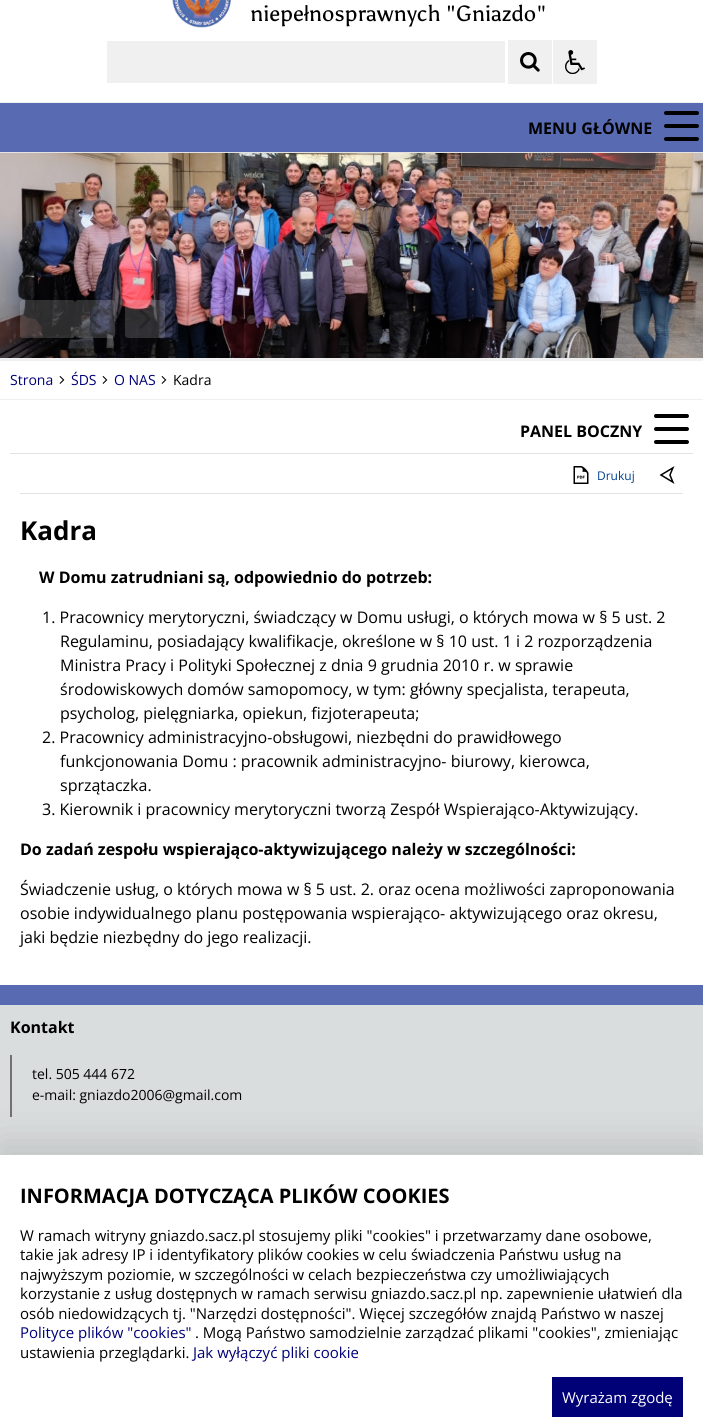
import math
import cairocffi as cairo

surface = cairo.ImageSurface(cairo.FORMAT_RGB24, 703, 1427)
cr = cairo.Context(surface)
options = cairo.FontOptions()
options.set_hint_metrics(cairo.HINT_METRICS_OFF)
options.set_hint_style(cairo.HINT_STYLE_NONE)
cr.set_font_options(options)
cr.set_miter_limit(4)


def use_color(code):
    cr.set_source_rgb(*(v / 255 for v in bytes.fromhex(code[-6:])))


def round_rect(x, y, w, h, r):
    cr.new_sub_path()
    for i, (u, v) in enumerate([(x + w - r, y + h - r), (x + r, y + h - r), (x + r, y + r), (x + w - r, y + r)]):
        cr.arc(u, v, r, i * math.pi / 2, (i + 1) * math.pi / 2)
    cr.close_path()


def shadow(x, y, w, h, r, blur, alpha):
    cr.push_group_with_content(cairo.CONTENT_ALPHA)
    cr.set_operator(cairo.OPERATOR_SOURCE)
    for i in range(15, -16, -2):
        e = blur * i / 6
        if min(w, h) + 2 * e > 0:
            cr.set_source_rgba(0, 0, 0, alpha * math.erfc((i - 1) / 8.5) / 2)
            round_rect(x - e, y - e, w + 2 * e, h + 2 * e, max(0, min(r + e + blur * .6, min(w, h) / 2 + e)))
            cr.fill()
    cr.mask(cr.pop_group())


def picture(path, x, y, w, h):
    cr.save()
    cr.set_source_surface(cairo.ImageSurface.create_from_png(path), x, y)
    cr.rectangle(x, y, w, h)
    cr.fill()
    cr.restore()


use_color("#586ab2")
cr.paint()
use_color("#ffffff")
cr.rectangle(0, 0, 703, 102)
cr.fill()
use_color("#f0f0f0")
cr.rectangle(0, 102, 703, 1)
cr.fill()
picture("img1.png", 172, 0, 59, 28)
cr.select_font_face("Asul")
cr.set_font_size(22)
use_color("#000000")
cr.move_to(250, 21)
cr.show_text("niepe nosprawnych \"Gniazdo\"")
cr.select_font_face("Liberation Sans")
cr.move_to(304, 21)
cr.show_text("ł")
use_color("#f0f0f0")
cr.rectangle(107, 41, 398, 42)
cr.fill()
cr.rectangle(508, 40, 44, 44)
cr.fill()
picture("img2.png", 520, 52, 20, 20)
cr.rectangle(553, 40, 44, 44)
cr.fill()
picture("img3.png", 565, 50, 20, 24)
use_color("#e3e3e3")
cr.rectangle(0, 152, 703, 1)
cr.fill()
cr.select_font_face("Open Sans", cairo.FONT_SLANT_NORMAL, cairo.FONT_WEIGHT_BOLD)
cr.set_font_size(16)
use_color("#000000")
cr.move_to(528, 134)
cr.show_text("MENU GŁÓWNE")
round_rect(664, 111, 35, 4, 2)
cr.fill()
round_rect(664, 124, 35, 4, 2)
cr.fill()
round_rect(664, 137, 35, 4, 2)
cr.fill()
picture("img4.png", 0, 153, 703, 205)
cr.set_source_rgba(0.831, 0.831, 0.831, 0.2)
round_rect(20, 300, 55, 38, 3)
cr.fill()
round_rect(75, 300, 40, 38, 3)
cr.fill()
picture("img5.png", 89, 309, 12, 20)
round_rect(125, 300, 40, 38, 3)
cr.fill()
picture("img6.png", 139, 309, 12, 20)
cr.set_source_rgba(0.6, 0.6, 0.6, 0.2)
cr.arc(194.5, 319.5, 4.5, 0, 2 * math.pi)
cr.fill()
cr.set_source_rgba(0.867, 0.867, 0.867, 0.2)
cr.arc(213.5, 319.5, 4.5, 0, 2 * math.pi)
cr.fill()
cr.arc(232.5, 319.5, 4.5, 0, 2 * math.pi)
cr.fill()
cr.arc(251.5, 319.5, 4.5, 0, 2 * math.pi)
cr.fill()
use_color("#ffffff")
cr.rectangle(0, 361, 703, 38)
cr.fill()
use_color("#f0f0f0")
cr.rectangle(0, 358, 703, 3)
cr.fill()
cr.rectangle(0, 399, 703, 1)
cr.fill()
cr.select_font_face("Open Sans")
cr.set_font_size(14)
use_color("#000077")
cr.move_to(10, 385)
cr.show_text("Strona")
picture("img7.png", 59, 376, 6, 8)
cr.move_to(71, 385)
cr.show_text("ŚDS")
picture("img7.png", 102, 376, 6, 8)
cr.move_to(114, 385)
cr.show_text("O NAS")
picture("img7.png", 161, 376, 6, 8)
use_color("#000000")
cr.move_to(173, 385)
cr.show_text("Kadra")
use_color("#ffffff")
cr.rectangle(0, 400, 703, 585)
cr.fill()
use_color("#e3e3e3")
cr.rectangle(10, 453, 683, 1)
cr.fill()
cr.select_font_face("Open Sans", cairo.FONT_SLANT_NORMAL, cairo.FONT_WEIGHT_BOLD)
cr.set_font_size(16)
use_color("#000000")
cr.move_to(520, 437)
cr.show_text("PANEL BOCZNY")
round_rect(654, 414, 35, 4, 2)
cr.fill()
round_rect(654, 427, 35, 4, 2)
cr.fill()
round_rect(654, 440, 35, 4, 2)
cr.fill()
use_color("#e3e3e3")
cr.rectangle(20, 493, 663, 1)
cr.fill()
picture("img8.png", 573, 466, 16, 18)
cr.select_font_face("Open Sans")
cr.set_font_size(12)
use_color("#004290")
cr.move_to(597, 480)
cr.show_text("Drukuj")
picture("img9.png", 659, 466, 16, 18)
cr.select_font_face("Open Sans", cairo.FONT_SLANT_NORMAL, cairo.FONT_WEIGHT_BOLD)
cr.set_font_size(26)
use_color("#000000")
cr.move_to(20, 540)
cr.show_text("Kadra")
cr.set_font_size(16)
cr.move_to(39, 583)
cr.show_text("W Domu zatrudniani są, odpowiednio do potrzeb:")
cr.select_font_face("Open Sans")
cr.move_to(42, 623)
cr.show_text("1. Pracownicy merytoryczni, świadczący w Domu usługi, o których mowa w § 5 ust. 2")
cr.move_to(60, 647)
cr.show_text("Regulaminu, posiadający kwalifikacje, określone w § 10 ust. 1 i 2 rozporządzenia")
cr.move_to(60, 671)
cr.show_text("Ministra Pracy i Polityki Społecznej z dnia 9 grudnia 2010 r. w sprawie")
cr.move_to(60, 695)
cr.show_text("środowiskowych domów samopomocy, w tym: główny specjalista, terapeuta,")
cr.move_to(60, 719)
cr.show_text("psycholog, pielęgniarka, opiekun, fizjoterapeuta;")
cr.move_to(42, 743)
cr.show_text("2. Pracownicy administracyjno-obsługowi, niezbędni do prawidłowego")
cr.move_to(60, 767)
cr.show_text("funkcjonowania Domu : pracownik administracyjno- biurowy, kierowca,")
cr.move_to(60, 791)
cr.show_text("sprzątaczka.")
cr.move_to(42, 815)
cr.show_text("3. Kierownik i pracownicy merytoryczni tworzą Zespół Wspierająco-Aktywizujący.")
cr.select_font_face("Open Sans", cairo.FONT_SLANT_NORMAL, cairo.FONT_WEIGHT_BOLD)
cr.move_to(20, 855)
cr.show_text("Do zadań zespołu wspierająco-aktywizującego należy w szczególności:")
cr.select_font_face("Open Sans")
cr.move_to(20, 895)
cr.show_text("Świadczenie usług, o których mowa w § 5 ust. 2. oraz ocena możliwości zaproponowania")
cr.move_to(20, 919)
cr.show_text("osobie indywidualnego planu postępowania wspierająco- aktywizującego oraz okresu,")
cr.move_to(20, 943)
cr.show_text("jaki będzie niezbędny do jego realizacji.")
use_color("#daddde")
cr.rectangle(0, 1005, 703, 149)
cr.fill()
cr.select_font_face("Open Sans", cairo.FONT_SLANT_NORMAL, cairo.FONT_WEIGHT_BOLD)
use_color("#000000")
cr.move_to(10, 1033)
cr.show_text("Kontakt")
use_color("#717171")
cr.rectangle(10, 1055, 2, 62)
cr.fill()
cr.select_font_face("Open Sans")
cr.set_font_size(14)
use_color("#000000")
cr.move_to(32, 1079)
cr.show_text("tel. 505 444 672")
cr.move_to(32, 1100)
cr.show_text("e-mail: gniazdo2006@gmail.com")
use_color("#000000")
shadow(0, 1142, 703, 273, 0, 20, 0.12)
use_color("#ffffff")
cr.rectangle(0, 1155, 703, 272)
cr.fill()
use_color("#cccccc")
cr.rectangle(0, 1154, 703, 1)
cr.fill()
cr.select_font_face("Open Sans", cairo.FONT_SLANT_NORMAL, cairo.FONT_WEIGHT_BOLD)
cr.set_font_size(20)
use_color("#000000")
cr.move_to(20, 1203)
cr.show_text("INFORMACJA DOTYCZĄCA PLIKÓW COOKIES")
cr.select_font_face("Open Sans")
cr.set_font_size(15)
cr.move_to(20, 1241)
cr.show_text("W ramach witryny gniazdo.sacz.pl stosujemy pliki \"cookies\" i przetwarzamy dane osobowe,")
cr.move_to(20, 1260)
cr.show_text("takie jak adresy IP i identyfikatory plików cookies w celu świadczenia Państwu usług na")
cr.move_to(20, 1280)
cr.show_text("najwyższym poziomie, w szczególności w celach bezpieczeństwa czy umożliwiających")
cr.move_to(20, 1299)
cr.show_text("korzystanie z usług dostępnych w ramach serwisu gniazdo.sacz.pl np. zapewnienie ułatwień dla")
cr.move_to(20, 1319)
cr.show_text("osób niedowidzących tj. \"Narzędzi dostępności\". Więcej szczegółów znajdą Państwo w naszej")
use_color("#000077")
cr.move_to(20, 1338)
cr.show_text("Polityce plików \"cookies\"")
use_color("#000000")
cr.move_to(195, 1338)
cr.show_text(". Mogą Państwo samodzielnie zarządzać plikami \"cookies\", zmieniając")
cr.move_to(20, 1358)
cr.show_text("ustawienia przeglądarki.")
use_color("#000077")
cr.move_to(193, 1358)
cr.show_text("Jak wyłączyć pliki cookie")
cr.rectangle(552, 1377, 131, 40)
cr.fill()
use_color("#ffffff")
cr.move_to(562, 1403)
cr.show_text("Wyrażam zgodę")
surface.write_to_png("result.png")
